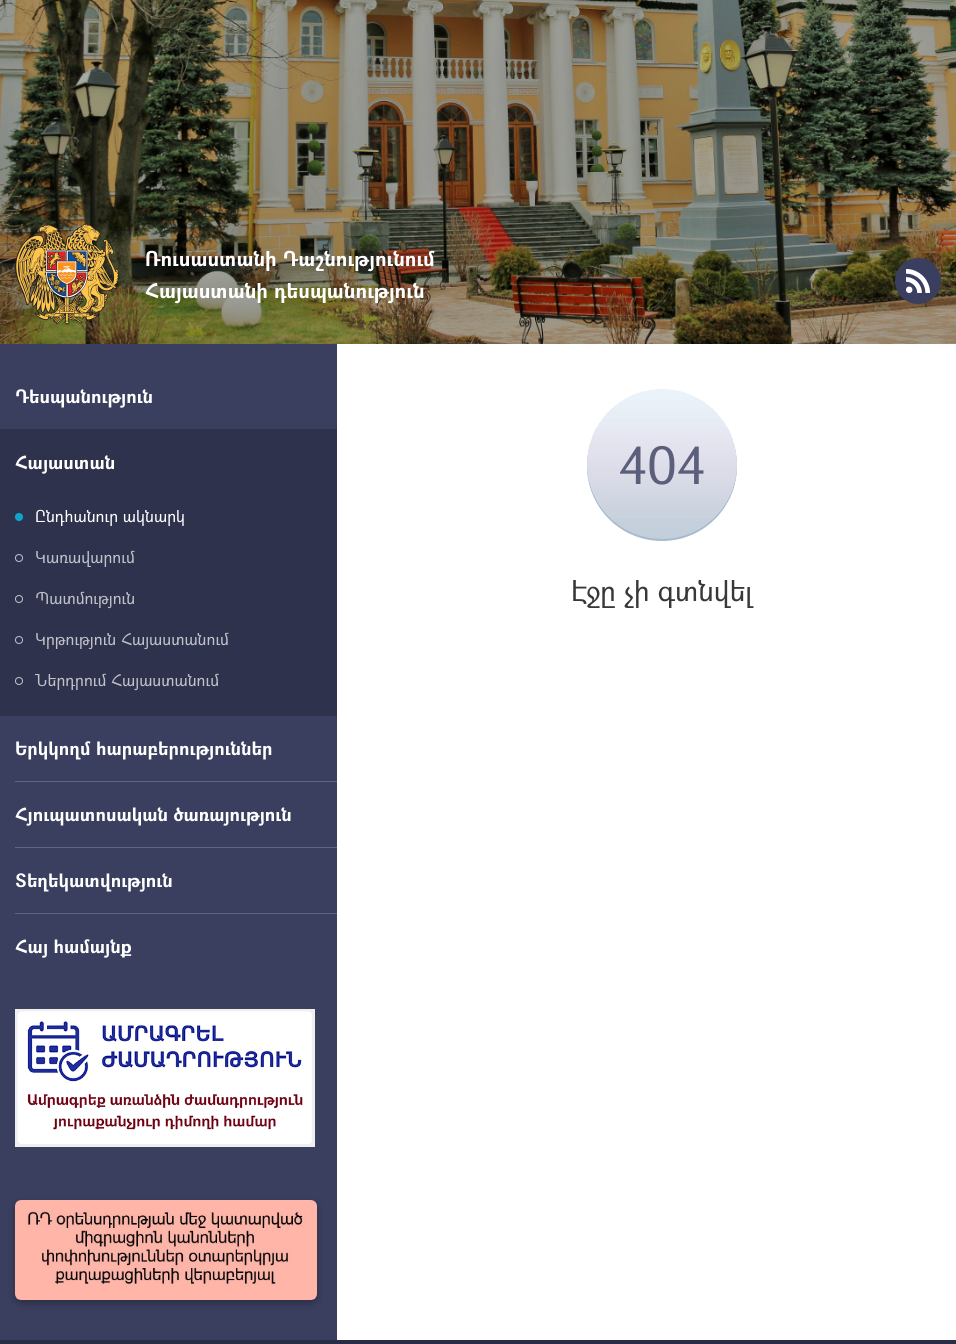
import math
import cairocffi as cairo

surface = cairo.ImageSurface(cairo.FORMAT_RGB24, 956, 1344)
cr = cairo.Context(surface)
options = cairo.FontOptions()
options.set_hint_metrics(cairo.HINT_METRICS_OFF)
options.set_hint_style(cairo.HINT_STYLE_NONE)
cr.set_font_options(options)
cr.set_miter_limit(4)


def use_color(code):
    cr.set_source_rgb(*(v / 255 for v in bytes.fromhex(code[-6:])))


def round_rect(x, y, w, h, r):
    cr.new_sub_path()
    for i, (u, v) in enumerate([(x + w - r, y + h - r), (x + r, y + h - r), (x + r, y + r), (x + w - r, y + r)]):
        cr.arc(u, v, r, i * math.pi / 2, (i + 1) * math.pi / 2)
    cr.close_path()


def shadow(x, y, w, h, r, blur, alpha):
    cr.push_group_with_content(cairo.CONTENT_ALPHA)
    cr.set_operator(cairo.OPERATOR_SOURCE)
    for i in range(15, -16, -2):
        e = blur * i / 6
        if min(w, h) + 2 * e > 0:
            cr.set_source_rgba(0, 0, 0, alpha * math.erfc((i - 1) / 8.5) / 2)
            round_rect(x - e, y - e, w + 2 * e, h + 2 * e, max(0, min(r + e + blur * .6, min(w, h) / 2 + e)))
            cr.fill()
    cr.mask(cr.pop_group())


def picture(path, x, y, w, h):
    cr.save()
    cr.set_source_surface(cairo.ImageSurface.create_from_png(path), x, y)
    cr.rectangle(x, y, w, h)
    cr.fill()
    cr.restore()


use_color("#ffffff")
cr.paint()
picture("img1.png", 0, 0, 956, 344)
picture("img2.png", 15, 224, 104, 100)
cr.select_font_face("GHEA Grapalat", cairo.FONT_SLANT_NORMAL, cairo.FONT_WEIGHT_BOLD)
cr.set_font_size(20)
use_color("#ffffff")
cr.move_to(145, 266)
cr.show_text("Ռուսաստանի Դաշնությունում")
cr.move_to(145, 298)
cr.show_text("Հայաստանի դեսպանություն")
use_color("#3b3f5f")
cr.new_path()
cr.arc(918, 281, 23, 0, 2 * math.pi)
cr.fill()
picture("img3.png", 906, 269, 24, 24)
cr.rectangle(0, 344, 337, 996)
cr.fill()
cr.set_font_size(18)
use_color("#ffffff")
cr.move_to(15, 403)
cr.show_text("Դեսպանություն")
use_color("#2f324c")
cr.rectangle(0, 429, 337, 287)
cr.fill()
use_color("#ffffff")
cr.move_to(15, 469)
cr.show_text("Հայաստան")
use_color("#0ea5cc")
cr.new_path()
cr.arc(19, 517, 3.5, 0, 2 * math.pi)
cr.fill_preserve()
cr.set_line_width(1)
cr.stroke()
cr.select_font_face("GHEA Grapalat")
cr.set_font_size(16)
use_color("#ffffff")
cr.move_to(35, 522)
cr.show_text("Ընդհանուր ակնարկ")
cr.new_path()
cr.arc(19, 558, 3.5, 0, 2 * math.pi)
use_color("#c1c2c9")
cr.stroke()
cr.move_to(35, 563)
cr.show_text("Կառավարում")
cr.new_path()
cr.arc(19, 599, 3.5, 0, 2 * math.pi)
cr.stroke()
cr.move_to(35, 604)
cr.show_text("Պատմություն")
cr.new_path()
cr.arc(19, 640, 3.5, 0, 2 * math.pi)
cr.stroke()
cr.move_to(35, 645)
cr.show_text("Կրթություն Հայաստանում")
cr.new_path()
cr.arc(19, 681, 3.5, 0, 2 * math.pi)
cr.stroke()
cr.move_to(35, 686)
cr.show_text("Ներդրում Հայաստանում")
cr.select_font_face("GHEA Grapalat", cairo.FONT_SLANT_NORMAL, cairo.FONT_WEIGHT_BOLD)
cr.set_font_size(18)
use_color("#ffffff")
cr.move_to(15, 755)
cr.show_text("Երկկողմ հարաբերություններ")
use_color("#62657f")
cr.rectangle(15, 781, 322, 1)
cr.fill()
use_color("#ffffff")
cr.move_to(15, 821)
cr.show_text("Հյուպատոսական ծառայություն")
use_color("#62657f")
cr.rectangle(15, 847, 322, 1)
cr.fill()
use_color("#ffffff")
cr.move_to(15, 887)
cr.show_text("Տեղեկատվություն")
use_color("#62657f")
cr.rectangle(15, 913, 322, 1)
cr.fill()
use_color("#ffffff")
cr.move_to(15, 953)
cr.show_text("Հայ համայնք")
use_color("#efefef")
cr.rectangle(15, 1009, 300, 138)
cr.fill()
picture("img4.png", 17, 1011, 295, 133)
use_color("#000000")
shadow(15, 1203, 302, 100, 6, 4, 0.3)
picture("img5.png", 15, 1200, 302, 100)
picture("img6.png", 587, 389, 150, 152)
cr.select_font_face("GHEA Grapalat")
cr.set_font_size(50)
use_color("#5c5f7b")
cr.move_to(619, 484)
cr.show_text("404")
cr.set_font_size(28)
use_color("#383838")
cr.move_to(571, 601)
cr.show_text("Էջը չի գտնվել")
use_color("#282c47")
cr.rectangle(0, 1340, 956, 4)
cr.fill()
surface.write_to_png("result.png")
